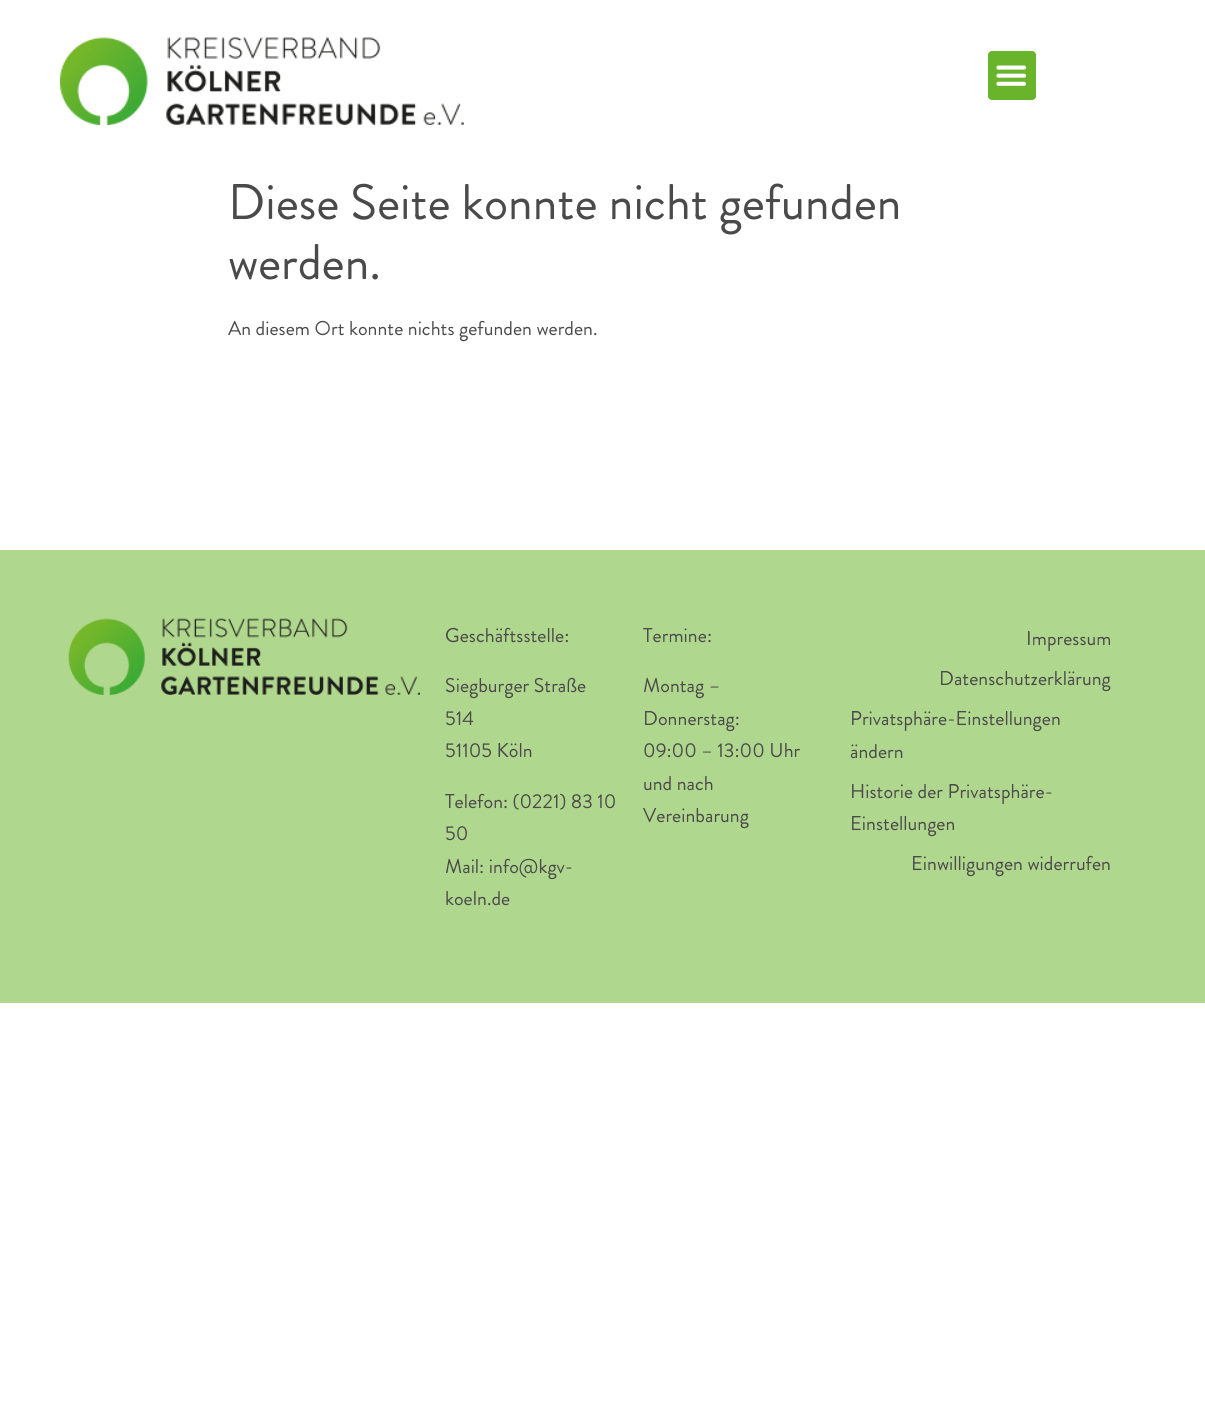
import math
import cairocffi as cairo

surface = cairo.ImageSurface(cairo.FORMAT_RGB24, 1205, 1425)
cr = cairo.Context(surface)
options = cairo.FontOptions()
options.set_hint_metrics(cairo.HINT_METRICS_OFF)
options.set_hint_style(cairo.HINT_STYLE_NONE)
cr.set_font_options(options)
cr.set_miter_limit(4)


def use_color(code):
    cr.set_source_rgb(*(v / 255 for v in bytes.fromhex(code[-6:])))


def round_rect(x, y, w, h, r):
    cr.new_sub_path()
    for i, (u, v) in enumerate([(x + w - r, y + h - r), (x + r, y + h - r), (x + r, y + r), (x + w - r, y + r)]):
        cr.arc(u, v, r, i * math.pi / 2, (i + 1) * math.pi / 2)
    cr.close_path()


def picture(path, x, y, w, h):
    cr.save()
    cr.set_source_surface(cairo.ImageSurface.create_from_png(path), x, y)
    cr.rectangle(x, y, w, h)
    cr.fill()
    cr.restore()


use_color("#ffffff")
cr.paint()
picture("img1.png", 60, 37, 404, 88)
use_color("#6ab42b")
round_rect(988, 51, 48, 49, 4)
cr.fill()
picture("img2.png", 996, 65, 31, 21)
cr.select_font_face("Brandon Grotesque")
cr.set_font_size(50)
use_color("#4a4a4a")
cr.move_to(228, 219)
cr.show_text("Diese Seite konnte nicht gefunden")
cr.move_to(228, 279)
cr.show_text("werden.")
cr.set_font_size(20)
cr.move_to(228, 335)
cr.show_text("An diesem Ort konnte nichts gefunden werden.")
use_color("#b0d78e")
cr.rectangle(0, 550, 1205, 453)
cr.fill()
picture("img3.png", 68, 618, 352, 77)
use_color("#4a4a4a")
cr.move_to(445, 642)
cr.show_text("Geschäftsstelle:")
cr.move_to(445, 692)
cr.show_text("Siegburger Straße")
cr.move_to(445, 725)
cr.show_text("514")
cr.move_to(445, 757)
cr.show_text("51105 Köln")
cr.move_to(445, 808)
cr.show_text("Telefon: (0221) 83 10")
cr.move_to(445, 840)
cr.show_text("50")
cr.move_to(445, 873)
cr.show_text("Mail: info@kgv-")
cr.move_to(445, 905)
cr.show_text("koeln.de")
cr.move_to(643, 642)
cr.show_text("Termine:")
cr.move_to(643, 692)
cr.show_text("Montag –")
cr.move_to(643, 725)
cr.show_text("Donnerstag:")
cr.move_to(643, 757)
cr.show_text("09:00 – 13:00 Uhr")
cr.move_to(643, 790)
cr.show_text("und nach")
cr.move_to(643, 822)
cr.show_text("Vereinbarung")
cr.move_to(1026, 645)
cr.show_text("Impressum")
cr.move_to(939, 685)
cr.show_text("Datenschutzerklärung")
cr.move_to(850, 725)
cr.show_text("Privatsphäre-Einstellungen")
cr.move_to(850, 758)
cr.show_text("ändern")
cr.move_to(850, 798)
cr.show_text("Historie der Privatsphäre-")
cr.move_to(850, 830)
cr.show_text("Einstellungen")
cr.move_to(911, 870)
cr.show_text("Einwilligungen widerrufen")
surface.write_to_png("result.png")
